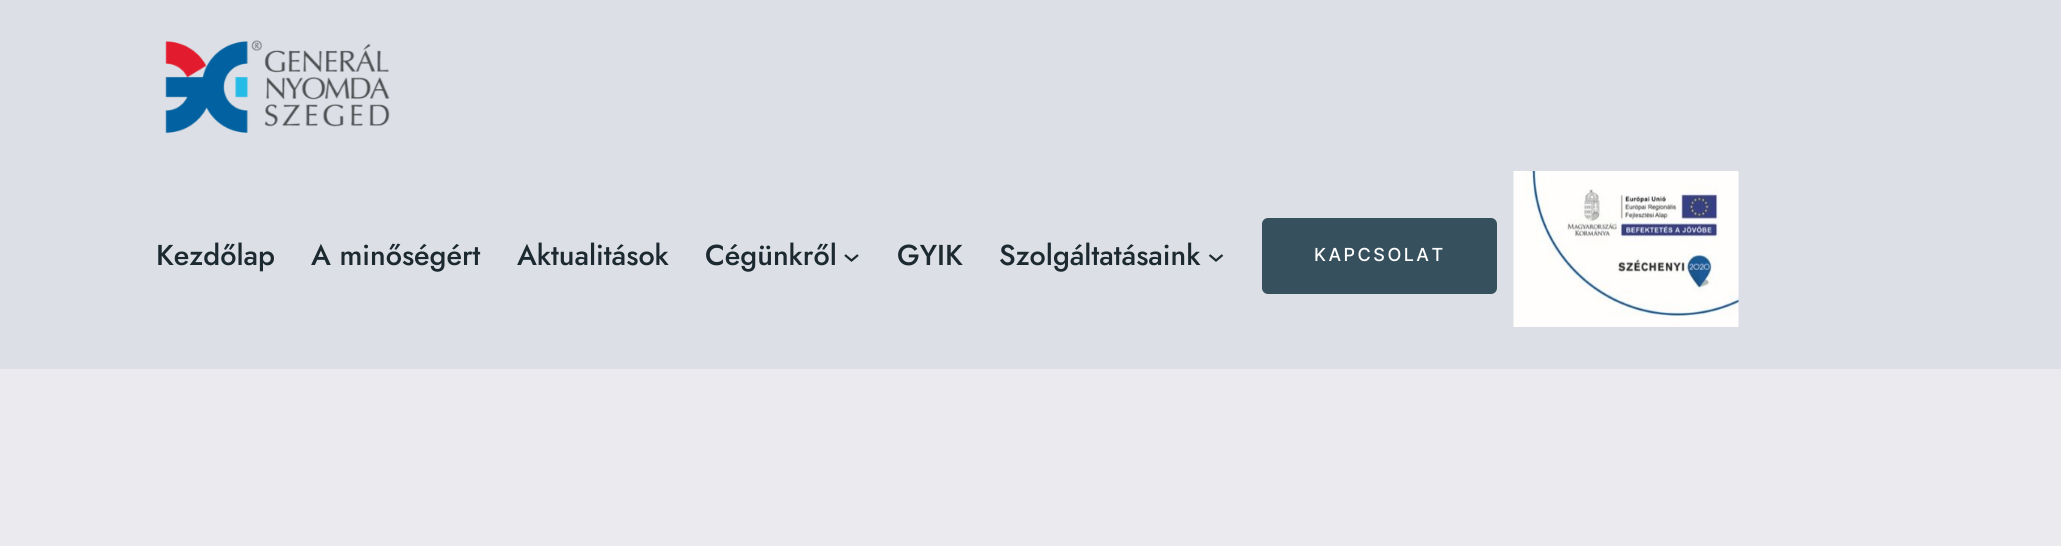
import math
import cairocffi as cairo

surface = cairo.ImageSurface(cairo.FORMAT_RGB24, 2061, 546)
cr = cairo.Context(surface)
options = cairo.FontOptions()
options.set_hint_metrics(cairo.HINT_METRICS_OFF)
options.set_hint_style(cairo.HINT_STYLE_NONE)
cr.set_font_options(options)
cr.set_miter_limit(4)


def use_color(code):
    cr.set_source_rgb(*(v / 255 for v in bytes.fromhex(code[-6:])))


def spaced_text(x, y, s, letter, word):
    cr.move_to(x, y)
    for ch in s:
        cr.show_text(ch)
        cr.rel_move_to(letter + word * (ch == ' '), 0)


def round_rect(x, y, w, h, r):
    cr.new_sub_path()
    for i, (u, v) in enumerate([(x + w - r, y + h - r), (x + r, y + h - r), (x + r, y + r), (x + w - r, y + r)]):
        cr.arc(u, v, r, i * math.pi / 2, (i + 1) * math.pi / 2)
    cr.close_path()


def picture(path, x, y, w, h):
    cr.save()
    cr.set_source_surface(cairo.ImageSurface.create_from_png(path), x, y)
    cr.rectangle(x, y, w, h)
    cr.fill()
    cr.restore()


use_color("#ebebef")
cr.paint()
use_color("#dce0e6")
cr.rectangle(0, 0, 2061, 369)
cr.fill()
picture("img1.png", 165, 40, 225, 94)
cr.select_font_face("Jost Medium")
cr.set_font_size(28.75)
use_color("#1c2930")
cr.move_to(156, 265)
cr.show_text("Kezdőlap")
cr.move_to(311, 265)
cr.show_text("A minőségért")
cr.move_to(517, 265)
cr.show_text("Aktualitások")
cr.move_to(705, 265)
cr.show_text("Cégünkről")
cr.new_path()
cr.move_to(845, 255)
cr.line_to(851.5, 260.5)
cr.line_to(858, 255)
cr.set_line_width(2.2)
cr.stroke()
cr.move_to(897, 265)
cr.show_text("GYIK")
cr.move_to(999, 265)
cr.show_text("Szolgáltatásaink")
cr.new_path()
cr.move_to(1209.5, 255)
cr.line_to(1216, 260.5)
cr.line_to(1222.5, 255)
cr.stroke()
use_color("#37505d")
round_rect(1262, 218, 235, 76, 6)
cr.fill()
cr.select_font_face("Inter Medium")
cr.set_font_size(18)
use_color("#ffffff")
spaced_text(1314, 261, "KAPCSOLAT", 2.5, 0)
picture("img2.png", 1513, 171, 226, 156)
surface.write_to_png("result.png")
